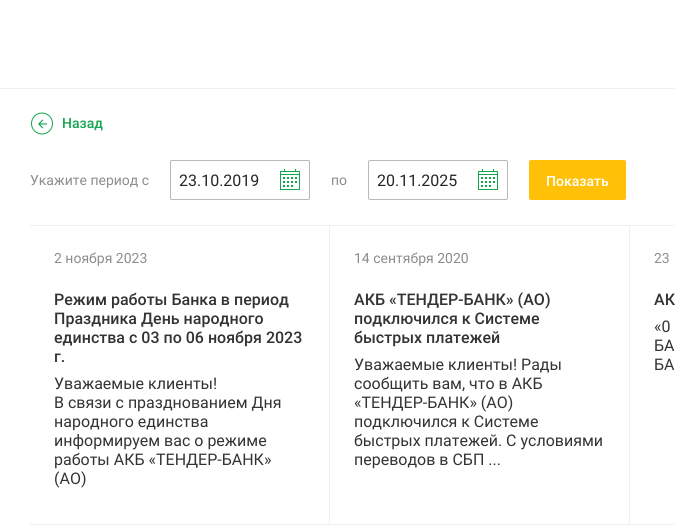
import math
import cairocffi as cairo

surface = cairo.ImageSurface(cairo.FORMAT_RGB24, 675, 530)
cr = cairo.Context(surface)
options = cairo.FontOptions()
options.set_hint_metrics(cairo.HINT_METRICS_OFF)
options.set_hint_style(cairo.HINT_STYLE_NONE)
cr.set_font_options(options)
cr.set_miter_limit(4)


def use_color(code):
    cr.set_source_rgb(*(v / 255 for v in bytes.fromhex(code[-6:])))


def round_rect(x, y, w, h, r):
    cr.new_sub_path()
    for i, (u, v) in enumerate([(x + w - r, y + h - r), (x + r, y + h - r), (x + r, y + r), (x + w - r, y + r)]):
        cr.arc(u, v, r, i * math.pi / 2, (i + 1) * math.pi / 2)
    cr.close_path()


def picture(path, x, y, w, h):
    cr.save()
    cr.set_source_surface(cairo.ImageSurface.create_from_png(path), x, y)
    cr.rectangle(x, y, w, h)
    cr.fill()
    cr.restore()


use_color("#ffffff")
cr.paint()
use_color("#efefef")
cr.rectangle(0, 88, 675, 1)
cr.fill()
picture("img1.png", 31, 112, 22, 23)
cr.select_font_face("Roboto Medium")
cr.set_font_size(14)
use_color("#14a551")
cr.move_to(62, 128)
cr.show_text("Назад")
cr.select_font_face("Roboto")
use_color("#8c8c8c")
cr.move_to(30, 185)
cr.show_text("Укажите период с")
round_rect(170.5, 160.5, 139, 39, 1.5)
use_color("#b8b8b8")
cr.set_line_width(1)
cr.stroke()
cr.set_font_size(16)
use_color("#262626")
cr.move_to(179, 186)
cr.show_text("23.10.2019")
picture("img2.png", 280, 169, 20, 21)
cr.set_font_size(14)
use_color("#8c8c8c")
cr.move_to(331, 185)
cr.show_text("по")
round_rect(368.5, 160.5, 139, 39, 1.5)
use_color("#b8b8b8")
cr.stroke()
cr.set_font_size(16)
use_color("#262626")
cr.move_to(377, 186)
cr.show_text("20.11.2025")
picture("img2.png", 478, 169, 20, 21)
use_color("#ffc107")
round_rect(529.5, 160.5, 96, 39, 1.5)
cr.fill_preserve()
cr.stroke()
cr.select_font_face("Roboto Medium")
cr.set_font_size(14)
use_color("#ffffff")
cr.move_to(546, 186)
cr.show_text("Показать")
use_color("#efefef")
cr.rectangle(30, 225, 645, 1)
cr.fill()
cr.rectangle(329, 225, 1, 300)
cr.fill()
cr.rectangle(30, 524, 300, 1)
cr.fill()
cr.select_font_face("Roboto")
use_color("#8c8c8c")
cr.move_to(54, 263)
cr.show_text("2 ноября 2023")
cr.select_font_face("Roboto Medium")
cr.set_font_size(16)
use_color("#333333")
cr.move_to(54, 305)
cr.show_text("Режим работы Банка в период")
cr.move_to(54, 324)
cr.show_text("Праздника День народного")
cr.move_to(54, 343)
cr.show_text("единства с 03 по 06 ноября 2023")
cr.move_to(54, 362)
cr.show_text("г.")
cr.select_font_face("Roboto")
cr.move_to(54, 389)
cr.show_text("Уважаемые клиенты!")
cr.move_to(54, 408)
cr.show_text("В связи с празднованием Дня")
cr.move_to(54, 427)
cr.show_text("народного единства")
cr.move_to(54, 446)
cr.show_text("информируем вас о режиме")
cr.move_to(54, 465)
cr.show_text("работы АКБ «ТЕНДЕР-БАНК»")
cr.move_to(54, 484)
cr.show_text("(АО)")
use_color("#efefef")
cr.rectangle(629, 225, 1, 300)
cr.fill()
cr.rectangle(330, 524, 345, 1)
cr.fill()
cr.set_font_size(14)
use_color("#8c8c8c")
cr.move_to(354, 263)
cr.show_text("14 сентября 2020")
cr.select_font_face("Roboto Medium")
cr.set_font_size(16)
use_color("#333333")
cr.move_to(354, 305)
cr.show_text("АКБ «ТЕНДЕР-БАНК» (АО)")
cr.move_to(354, 324)
cr.show_text("подключился к Системе")
cr.move_to(354, 343)
cr.show_text("быстрых платежей")
cr.select_font_face("Roboto")
cr.move_to(354, 370)
cr.show_text("Уважаемые клиенты! Рады")
cr.move_to(354, 389)
cr.show_text("сообщить вам, что в АКБ")
cr.move_to(354, 408)
cr.show_text("«ТЕНДЕР-БАНК» (АО)")
cr.move_to(354, 427)
cr.show_text("подключился к Системе")
cr.move_to(354, 446)
cr.show_text("быстрых платежей. С условиями")
cr.move_to(354, 465)
cr.show_text("переводов в СБП ...")
cr.set_font_size(14)
use_color("#8c8c8c")
cr.move_to(654, 263)
cr.show_text("23")
cr.select_font_face("Roboto Medium")
cr.set_font_size(16)
use_color("#333333")
cr.move_to(654, 305)
cr.show_text("АК")
cr.select_font_face("Roboto")
cr.move_to(654, 332)
cr.show_text("«0")
cr.move_to(654, 351)
cr.show_text("БА")
cr.move_to(654, 370)
cr.show_text("БА")
surface.write_to_png("result.png")
